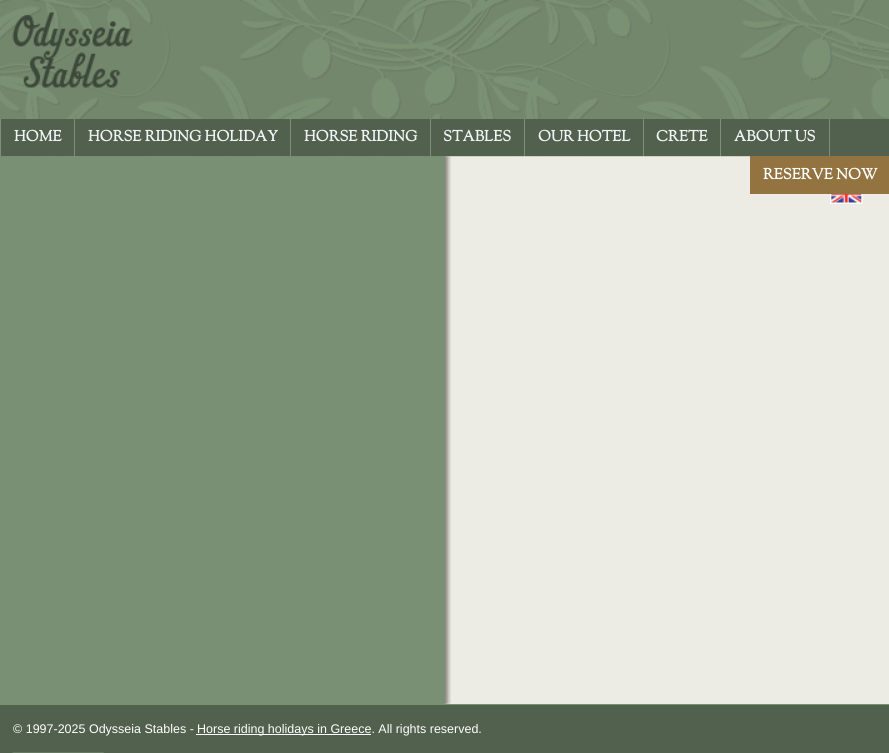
import math
import cairocffi as cairo

surface = cairo.ImageSurface(cairo.FORMAT_RGB24, 889, 753)
cr = cairo.Context(surface)
options = cairo.FontOptions()
options.set_hint_metrics(cairo.HINT_METRICS_OFF)
options.set_hint_style(cairo.HINT_STYLE_NONE)
cr.set_font_options(options)
cr.set_miter_limit(4)


def use_color(code):
    cr.set_source_rgb(*(v / 255 for v in bytes.fromhex(code[-6:])))


def picture(path, x, y, w, h):
    cr.save()
    cr.set_source_surface(cairo.ImageSurface.create_from_png(path), x, y)
    cr.rectangle(x, y, w, h)
    cr.fill()
    cr.restore()


use_color("#7a9074")
cr.paint()
use_color("#ecece4")
cr.rectangle(445, 156, 444, 548)
cr.fill()
picture("img3.png", 445, 156, 6, 548)
picture("img1.png", 0, 0, 889, 157)
picture("img2.png", 12, 12, 121, 76)
use_color("#51614d")
cr.rectangle(1, 119, 888, 37)
cr.fill()
use_color("#7d8f79")
cr.rectangle(74, 119, 1, 37)
cr.fill()
cr.rectangle(0, 119, 1, 37)
cr.fill()
cr.select_font_face("Sorts Mill Goudy", cairo.FONT_SLANT_NORMAL, cairo.FONT_WEIGHT_BOLD)
cr.set_font_size(15)
use_color("#f1f4f6")
cr.move_to(14, 141)
cr.show_text("HOME")
use_color("#7d8f79")
cr.rectangle(290, 119, 1, 37)
cr.fill()
use_color("#f1f4f6")
cr.move_to(88, 141)
cr.show_text("HORSE RIDING HOLIDAY")
use_color("#7d8f79")
cr.rectangle(430, 119, 1, 37)
cr.fill()
use_color("#f1f4f6")
cr.move_to(304, 141)
cr.show_text("HORSE RIDING")
use_color("#7d8f79")
cr.rectangle(524, 119, 1, 37)
cr.fill()
use_color("#f1f4f6")
cr.move_to(443, 141)
cr.show_text("STABLES")
use_color("#7d8f79")
cr.rectangle(643, 119, 1, 37)
cr.fill()
use_color("#f1f4f6")
cr.move_to(538, 141)
cr.show_text("OUR HOTEL")
use_color("#7d8f79")
cr.rectangle(720, 119, 1, 37)
cr.fill()
use_color("#f1f4f6")
cr.move_to(656, 141)
cr.show_text("CRETE")
use_color("#7d8f79")
cr.rectangle(829, 119, 1, 37)
cr.fill()
use_color("#f1f4f6")
cr.move_to(734, 141)
cr.show_text("ABOUT US")
use_color("#937340")
cr.rectangle(750, 156, 139, 38)
cr.fill()
use_color("#ffffff")
cr.move_to(763, 179)
cr.show_text("RESERVE NOW")
picture("img4.png", 830, 194, 33, 10)
use_color("#51614d")
cr.rectangle(0, 705, 889, 48)
cr.fill()
cr.select_font_face("Liberation Sans")
cr.set_font_size(12.5)
use_color("#ffffff")
cr.move_to(13, 733)
cr.show_text("© 1997-2025 Odysseia Stables -")
cr.rectangle(196, 734, 175, 1)
cr.fill()
cr.move_to(197, 733)
cr.show_text("Horse riding holidays in Greece. All rights reserved.")
picture("img5.png", 12, 752, 92, 1)
surface.write_to_png("result.png")
